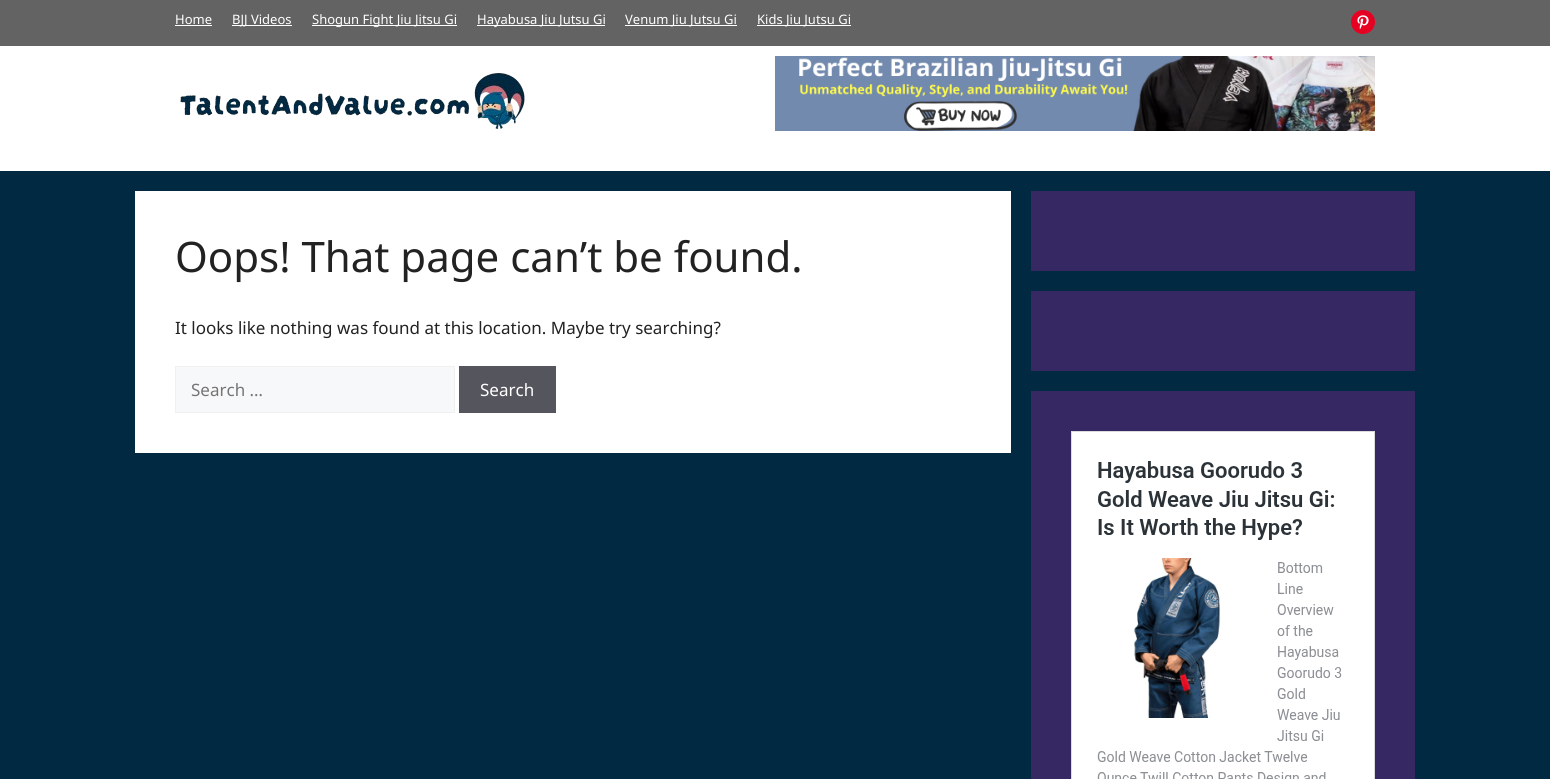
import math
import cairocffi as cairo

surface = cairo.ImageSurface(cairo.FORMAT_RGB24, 1550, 779)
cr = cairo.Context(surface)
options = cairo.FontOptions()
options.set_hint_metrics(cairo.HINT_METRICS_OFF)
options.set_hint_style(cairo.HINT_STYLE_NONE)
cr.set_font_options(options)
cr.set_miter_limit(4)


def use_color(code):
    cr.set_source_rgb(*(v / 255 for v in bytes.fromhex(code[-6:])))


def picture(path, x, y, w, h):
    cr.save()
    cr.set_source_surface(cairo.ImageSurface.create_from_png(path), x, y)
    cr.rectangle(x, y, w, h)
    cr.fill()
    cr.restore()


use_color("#012941")
cr.paint()
use_color("#636363")
cr.rectangle(0, 0, 1550, 46)
cr.fill()
cr.select_font_face("Noto Sans")
cr.set_font_size(13)
use_color("#ffffff")
cr.move_to(175, 24)
cr.show_text("Home")
cr.rectangle(175, 25, 37, 1)
cr.fill()
cr.rectangle(232, 25, 60, 1)
cr.fill()
cr.move_to(232, 24)
cr.show_text("BJJ Videos")
cr.rectangle(312, 25, 145, 1)
cr.fill()
cr.move_to(312, 24)
cr.show_text("Shogun Fight Jiu Jitsu Gi")
cr.rectangle(477, 25, 128, 1)
cr.fill()
cr.move_to(477, 24)
cr.show_text("Hayabusa Jiu Jutsu Gi")
cr.rectangle(625, 25, 112, 1)
cr.fill()
cr.move_to(625, 24)
cr.show_text("Venum Jiu Jutsu Gi")
cr.rectangle(757, 25, 94, 1)
cr.fill()
cr.move_to(757, 24)
cr.show_text("Kids Jiu Jutsu Gi")
use_color("#e60122")
cr.new_path()
cr.arc(1363, 22, 12, 0, 2 * math.pi)
cr.fill()
picture("img1.png", 1357, 15, 12, 14)
use_color("#ffffff")
cr.rectangle(0, 46, 1550, 125)
cr.fill()
picture("img2.png", 180, 73, 345, 56)
picture("img3.png", 775, 56, 600, 75)
cr.rectangle(135, 191, 876, 262)
cr.fill()
cr.set_font_size(42)
use_color("#222222")
cr.move_to(175, 272)
cr.show_text("Oops! That page can’t be found.")
cr.set_font_size(17)
cr.move_to(175, 334)
cr.show_text("It looks like nothing was found at this location. Maybe try searching?")
use_color("#f7f8f9")
cr.rectangle(175.5, 366.5, 279, 46)
cr.fill_preserve()
use_color("#f0f0f0")
cr.set_line_width(1)
cr.stroke()
use_color("#757575")
cr.move_to(191, 396)
cr.show_text("Search …")
use_color("#55555e")
cr.rectangle(459, 366, 97, 47)
cr.fill()
use_color("#ffffff")
cr.move_to(480, 396)
cr.show_text("Search")
use_color("#352863")
cr.rectangle(1031, 191, 384, 80)
cr.fill()
cr.rectangle(1031, 291, 384, 80)
cr.fill()
cr.rectangle(1031, 391, 384, 388)
cr.fill()
picture("img4.png", 1071, 431, 304, 348)
surface.write_to_png("result.png")
